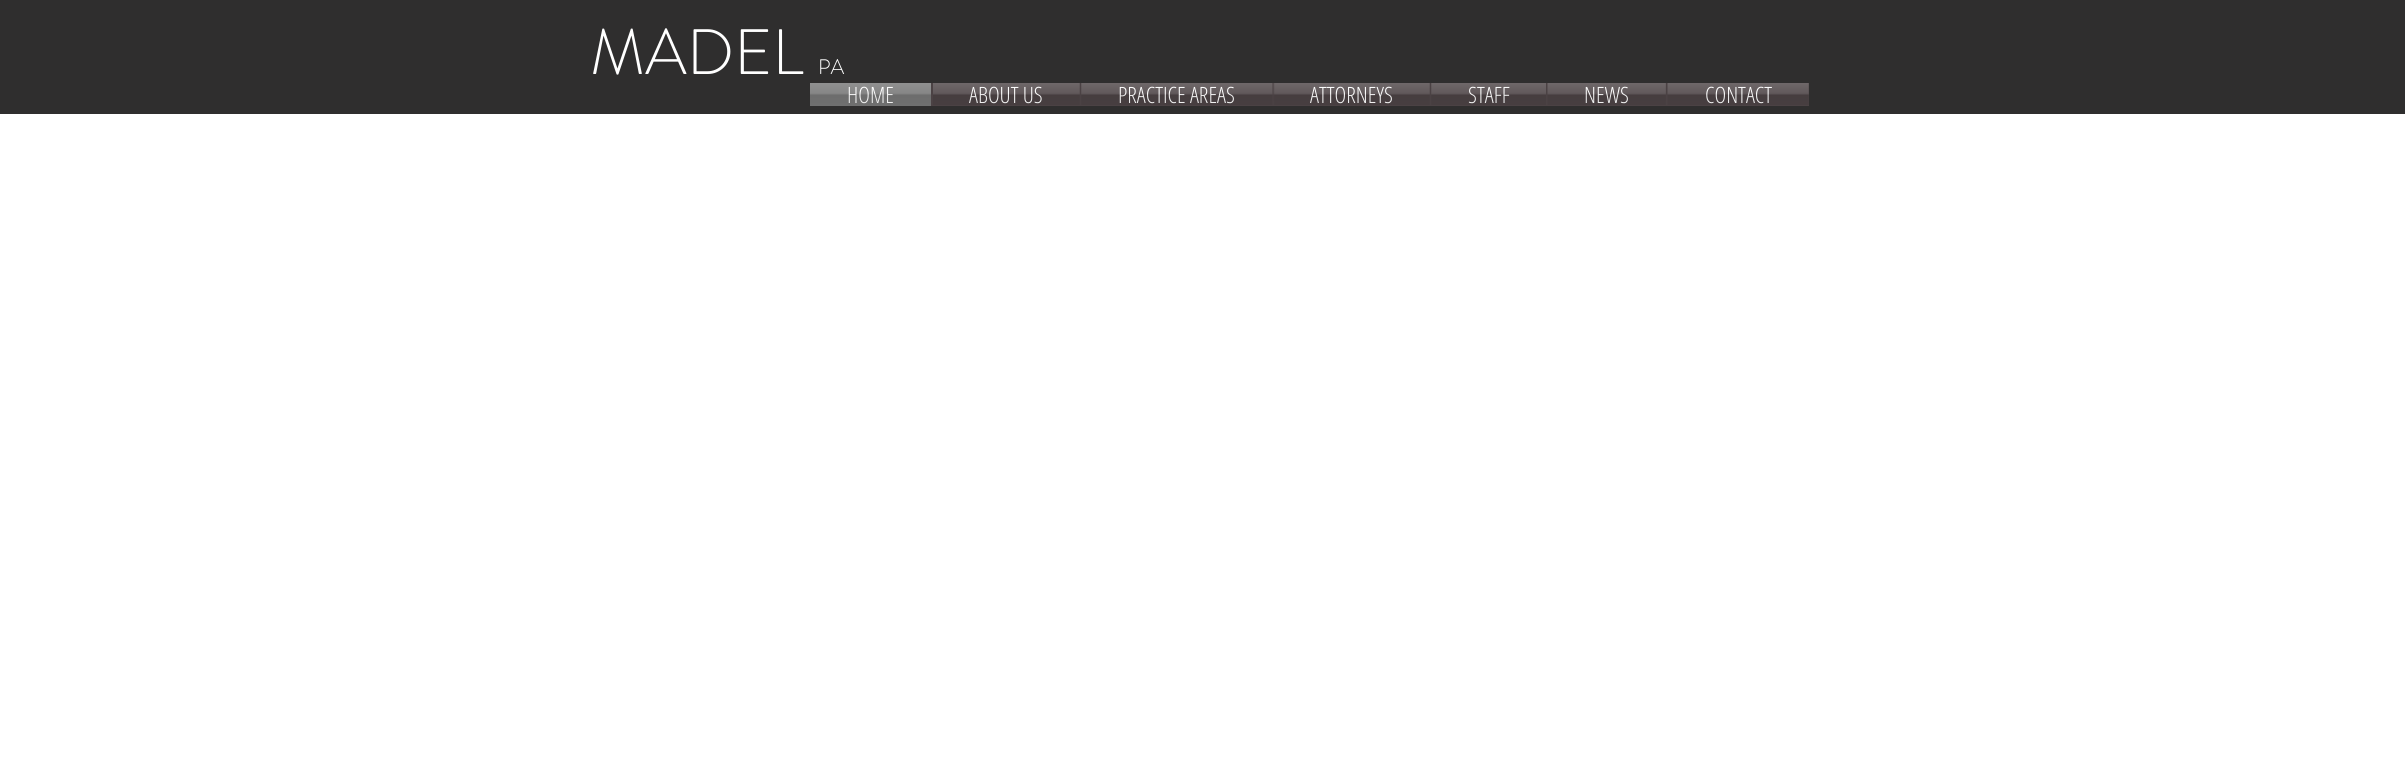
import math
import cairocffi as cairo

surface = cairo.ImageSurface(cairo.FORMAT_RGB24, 2405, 769)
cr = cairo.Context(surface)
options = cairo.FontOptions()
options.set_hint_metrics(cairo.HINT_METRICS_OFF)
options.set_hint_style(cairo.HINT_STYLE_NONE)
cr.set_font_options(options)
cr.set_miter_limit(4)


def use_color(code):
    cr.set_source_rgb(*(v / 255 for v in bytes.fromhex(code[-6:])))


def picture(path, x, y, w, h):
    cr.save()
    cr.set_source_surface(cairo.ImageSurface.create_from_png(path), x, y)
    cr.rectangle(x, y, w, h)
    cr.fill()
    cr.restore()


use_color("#ffffff")
cr.paint()
use_color("#2f2e2e")
cr.rectangle(0, 0, 2405, 114)
cr.fill()
cr.select_font_face("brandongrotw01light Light")
cr.set_font_size(64)
use_color("#ffffff")
cr.move_to(590, 74)
cr.show_text("MADEL")
cr.set_font_size(21)
cr.move_to(818, 74)
cr.show_text("PA")
use_color("#757575")
cr.rectangle(810, 83, 121, 23)
cr.fill()
cr.select_font_face("Open Sans Condensed Light")
cr.set_font_size(22.5)
use_color("#ffffff")
cr.move_to(847, 103)
cr.show_text("HOME")
picture("img1.png", 810, 83, 121, 23)
use_color("#4b4244")
cr.rectangle(931, 83, 878, 23)
cr.fill()
use_color("#ffffff")
cr.move_to(969, 103)
cr.show_text("ABOUT US")
picture("img2.png", 933, 83, 147, 22)
cr.move_to(1118, 103)
cr.show_text("PRACTICE AREAS")
picture("img3.png", 1081, 83, 192, 22)
cr.move_to(1310, 103)
cr.show_text("ATTORNEYS")
picture("img4.png", 1273, 83, 157, 22)
cr.move_to(1468, 103)
cr.show_text("STAFF")
picture("img5.png", 1431, 83, 115, 22)
cr.move_to(1584, 103)
cr.show_text("NEWS")
picture("img6.png", 1547, 83, 119, 22)
cr.move_to(1705, 103)
cr.show_text("CONTACT")
picture("img7.png", 1667, 83, 142, 22)
surface.write_to_png("result.png")
